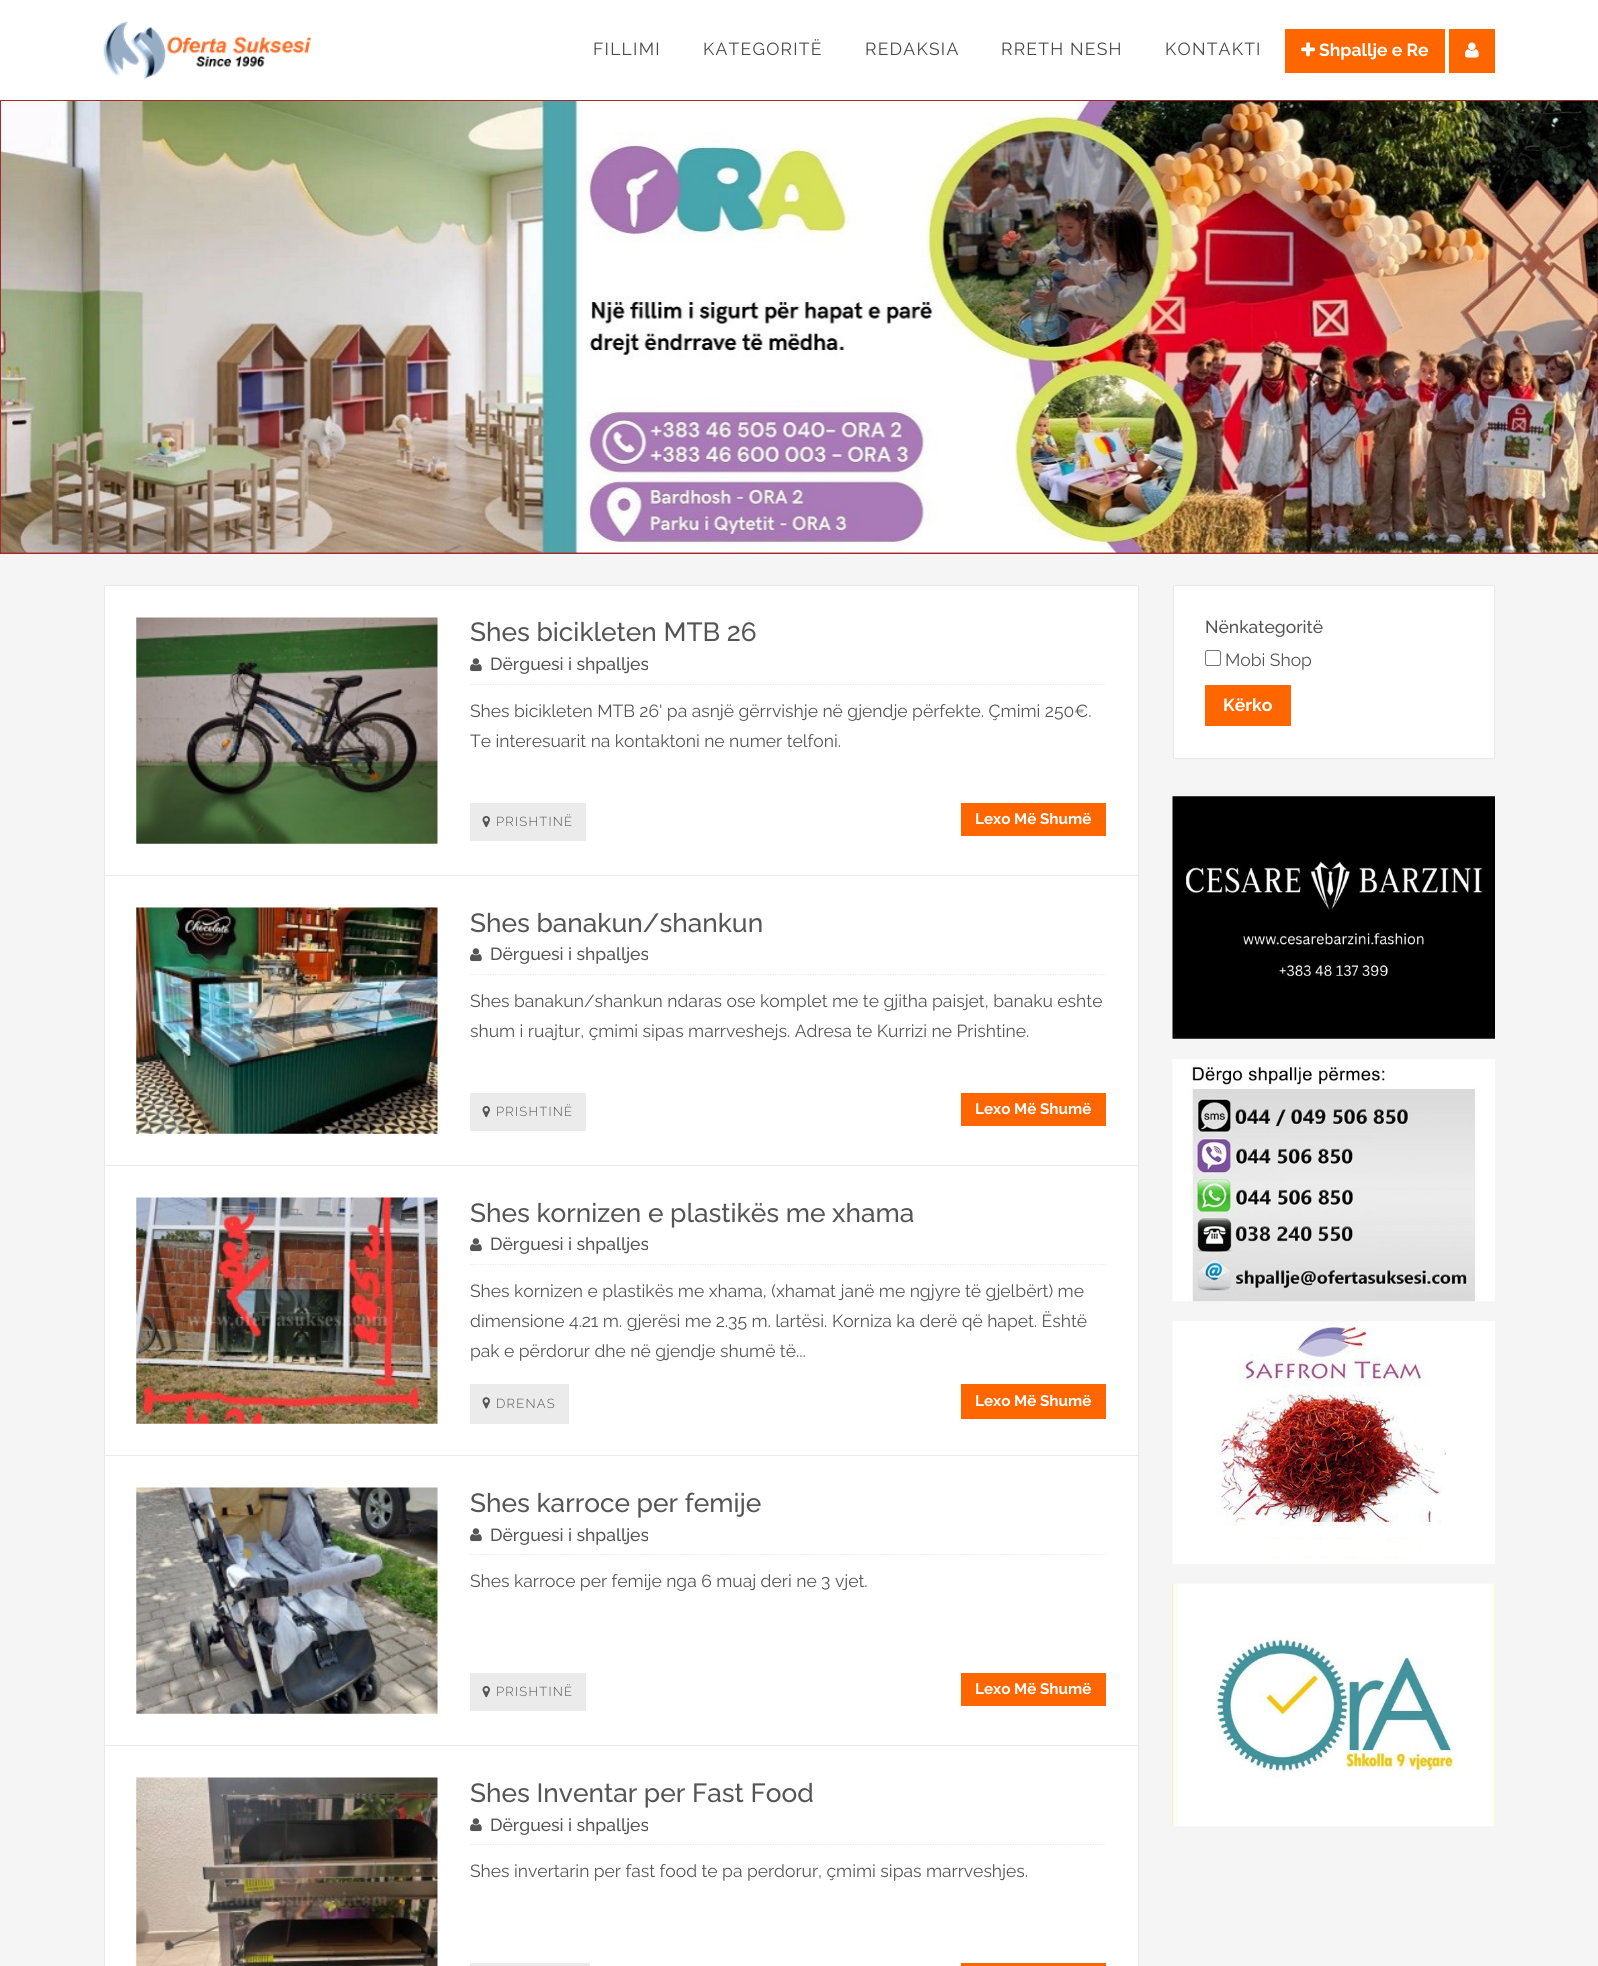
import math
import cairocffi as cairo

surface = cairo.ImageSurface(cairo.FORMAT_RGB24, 1598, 1966)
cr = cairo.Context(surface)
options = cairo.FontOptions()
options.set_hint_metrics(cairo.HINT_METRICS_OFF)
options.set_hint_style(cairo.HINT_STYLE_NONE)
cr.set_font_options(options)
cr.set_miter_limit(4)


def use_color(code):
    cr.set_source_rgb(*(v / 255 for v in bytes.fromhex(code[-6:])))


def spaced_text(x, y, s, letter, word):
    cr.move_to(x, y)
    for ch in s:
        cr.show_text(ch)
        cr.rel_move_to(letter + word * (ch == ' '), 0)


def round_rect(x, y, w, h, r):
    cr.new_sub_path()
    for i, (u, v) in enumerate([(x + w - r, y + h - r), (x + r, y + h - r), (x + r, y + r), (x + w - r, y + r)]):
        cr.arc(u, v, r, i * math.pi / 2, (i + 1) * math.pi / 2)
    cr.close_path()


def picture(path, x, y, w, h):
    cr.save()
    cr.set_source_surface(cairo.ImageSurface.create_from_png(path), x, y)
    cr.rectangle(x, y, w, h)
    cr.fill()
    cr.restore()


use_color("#f5f5f5")
cr.paint()
use_color("#ffffff")
cr.rectangle(0, 0, 1598, 100)
cr.fill()
picture("img1.png", 103, 21, 209, 59)
cr.select_font_face("Raleway")
cr.set_font_size(17.5)
use_color("#484848")
spaced_text(593, 55, "FILLIMI", 1.25, 0)
spaced_text(703, 55, "KATEGORITË", 1.25, 0)
spaced_text(865, 55, "REDAKSIA", 1.25, 0)
spaced_text(1001, 55, "RRETH NESH", 1.25, 0)
spaced_text(1165, 55, "KONTAKTI", 1.25, 0)
use_color("#ff6600")
cr.rectangle(1285, 29, 160, 44)
cr.fill()
picture("img2.png", 1301, 42, 14, 15)
cr.select_font_face("Raleway", cairo.FONT_SLANT_NORMAL, cairo.FONT_WEIGHT_BOLD)
use_color("#ffffff")
cr.move_to(1319, 56)
cr.show_text("Shpallje e Re")
use_color("#ff6600")
cr.rectangle(1449, 29, 46, 44)
cr.fill()
picture("img3.png", 1465, 42, 14, 16)
use_color("#a52a2a")
cr.rectangle(0, 100, 1598, 454)
cr.fill()
picture("img4.png", 1, 101, 1597, 452)
use_color("#ffffff")
cr.rectangle(105, 586, 1033, 289)
cr.fill()
use_color("#eaeaea")
cr.rectangle(104, 585, 1035, 1)
cr.fill()
cr.rectangle(1138, 585, 1, 290)
cr.fill()
cr.rectangle(104, 585, 1, 290)
cr.fill()
picture("img5.png", 136, 617, 302, 227)
cr.new_path()
cr.move_to(470, 684.5)
cr.line_to(1106, 684.5)
cr.set_line_width(1.2)
cr.set_dash([1.25, 1.25])
cr.stroke()
cr.select_font_face("Raleway Medium")
cr.set_font_size(26.25)
use_color("#555555")
cr.move_to(470, 641)
cr.show_text("Shes bicikleten MTB 26")
picture("img6.png", 470, 658, 12, 14)
cr.set_font_size(17.5)
cr.move_to(490, 670)
cr.show_text("Dërguesi i shpalljes")
cr.select_font_face("Raleway")
cr.move_to(470, 717)
cr.show_text("Shes bicikleten MTB 26' pa asnjë gërrvishje në gjendje përfekte. Çmimi 250€.")
cr.move_to(470, 747)
cr.show_text("Te interesuarit na kontaktoni ne numer telfoni.")
use_color("#ecebeb")
cr.rectangle(470, 803, 116, 38)
cr.fill()
picture("img7.png", 482, 816, 8, 12)
cr.select_font_face("Raleway Light")
cr.set_font_size(13)
use_color("#555555")
spaced_text(496, 826, "PRISHTINË", 1.25, 0)
use_color("#ff6600")
cr.rectangle(961, 803, 145, 33)
cr.fill()
cr.select_font_face("Raleway", cairo.FONT_SLANT_NORMAL, cairo.FONT_WEIGHT_BOLD)
cr.set_font_size(15.25)
use_color("#ffffff")
cr.move_to(975, 824)
cr.show_text("Lexo Më Shumë")
cr.rectangle(105, 876, 1033, 289)
cr.fill()
use_color("#eaeaea")
cr.rectangle(104, 875, 1035, 1)
cr.fill()
cr.rectangle(1138, 875, 1, 290)
cr.fill()
cr.rectangle(104, 875, 1, 290)
cr.fill()
picture("img8.png", 136, 907, 302, 227)
cr.new_path()
cr.move_to(470, 974.5)
cr.line_to(1106, 974.5)
cr.stroke()
cr.select_font_face("Raleway Medium")
cr.set_font_size(26.25)
use_color("#555555")
cr.move_to(470, 932)
cr.show_text("Shes banakun/shankun")
picture("img6.png", 470, 948, 12, 14)
cr.set_font_size(17.5)
cr.move_to(490, 960)
cr.show_text("Dërguesi i shpalljes")
cr.select_font_face("Raleway")
cr.move_to(470, 1007)
cr.show_text("Shes banakun/shankun ndaras ose komplet me te gjitha paisjet, banaku eshte")
cr.move_to(470, 1037)
cr.show_text("shum i ruajtur, çmimi sipas marrveshejs. Adresa te Kurrizi ne Prishtine.")
use_color("#ecebeb")
cr.rectangle(470, 1093, 116, 38)
cr.fill()
picture("img7.png", 482, 1106, 8, 12)
cr.select_font_face("Raleway Light")
cr.set_font_size(13)
use_color("#555555")
spaced_text(496, 1116, "PRISHTINË", 1.25, 0)
use_color("#ff6600")
cr.rectangle(961, 1093, 145, 33)
cr.fill()
cr.select_font_face("Raleway", cairo.FONT_SLANT_NORMAL, cairo.FONT_WEIGHT_BOLD)
cr.set_font_size(15.25)
use_color("#ffffff")
cr.move_to(975, 1114)
cr.show_text("Lexo Më Shumë")
cr.rectangle(105, 1166, 1033, 289)
cr.fill()
use_color("#eaeaea")
cr.rectangle(104, 1165, 1035, 1)
cr.fill()
cr.rectangle(1138, 1165, 1, 290)
cr.fill()
cr.rectangle(104, 1165, 1, 290)
cr.fill()
picture("img9.png", 136, 1197, 302, 227)
cr.new_path()
cr.move_to(470, 1264.5)
cr.line_to(1106, 1264.5)
cr.stroke()
cr.select_font_face("Raleway Medium")
cr.set_font_size(26.25)
use_color("#555555")
cr.move_to(470, 1222)
cr.show_text("Shes kornizen e plastikës me xhama")
picture("img6.png", 470, 1238, 12, 14)
cr.set_font_size(17.5)
cr.move_to(490, 1250)
cr.show_text("Dërguesi i shpalljes")
cr.select_font_face("Raleway")
cr.move_to(470, 1297)
cr.show_text("Shes kornizen e plastikës me xhama, (xhamat janë me ngjyre të gjelbërt) me")
cr.move_to(470, 1327)
cr.show_text("dimensione 4.21 m. gjerësi me 2.35 m. lartësi. Korniza ka derë që hapet. Është")
cr.move_to(470, 1357)
cr.show_text("pak e përdorur dhe në gjendje shumë të...")
use_color("#ecebeb")
cr.rectangle(470, 1384, 99, 40)
cr.fill()
picture("img10.png", 482, 1397, 8, 12)
cr.select_font_face("Raleway Light")
cr.set_font_size(13)
use_color("#555555")
spaced_text(496, 1408, "DRENAS", 1.25, 0)
use_color("#ff6600")
cr.rectangle(961, 1384, 145, 35)
cr.fill()
cr.select_font_face("Raleway", cairo.FONT_SLANT_NORMAL, cairo.FONT_WEIGHT_BOLD)
cr.set_font_size(15.25)
use_color("#ffffff")
cr.move_to(975, 1406)
cr.show_text("Lexo Më Shumë")
cr.rectangle(105, 1456, 1033, 289)
cr.fill()
use_color("#eaeaea")
cr.rectangle(104, 1455, 1035, 1)
cr.fill()
cr.rectangle(1138, 1455, 1, 290)
cr.fill()
cr.rectangle(104, 1455, 1, 290)
cr.fill()
picture("img11.png", 136, 1487, 302, 227)
cr.new_path()
cr.move_to(470, 1554.5)
cr.line_to(1106, 1554.5)
cr.stroke()
cr.select_font_face("Raleway Medium")
cr.set_font_size(26.25)
use_color("#555555")
cr.move_to(470, 1512)
cr.show_text("Shes karroce per femije")
picture("img6.png", 470, 1528, 12, 14)
cr.set_font_size(17.5)
cr.move_to(490, 1541)
cr.show_text("Dërguesi i shpalljes")
cr.select_font_face("Raleway")
cr.move_to(470, 1587)
cr.show_text("Shes karroce per femije nga 6 muaj deri ne 3 vjet.")
use_color("#ecebeb")
cr.rectangle(470, 1673, 116, 38)
cr.fill()
picture("img7.png", 482, 1686, 8, 12)
cr.select_font_face("Raleway Light")
cr.set_font_size(13)
use_color("#555555")
spaced_text(496, 1696, "PRISHTINË", 1.25, 0)
use_color("#ff6600")
cr.rectangle(961, 1673, 145, 33)
cr.fill()
cr.select_font_face("Raleway", cairo.FONT_SLANT_NORMAL, cairo.FONT_WEIGHT_BOLD)
cr.set_font_size(15.25)
use_color("#ffffff")
cr.move_to(975, 1694)
cr.show_text("Lexo Më Shumë")
cr.rectangle(105, 1746, 1033, 220)
cr.fill()
use_color("#eaeaea")
cr.rectangle(104, 1745, 1035, 1)
cr.fill()
cr.rectangle(1138, 1745, 1, 221)
cr.fill()
cr.rectangle(104, 1745, 1, 221)
cr.fill()
picture("img12.png", 136, 1777, 302, 189)
cr.new_path()
cr.move_to(470, 1844.5)
cr.line_to(1106, 1844.5)
cr.stroke()
cr.select_font_face("Raleway Medium")
cr.set_font_size(26.25)
use_color("#555555")
cr.move_to(470, 1802)
cr.show_text("Shes Inventar per Fast Food")
picture("img6.png", 470, 1818, 12, 14)
cr.set_font_size(17.5)
cr.move_to(490, 1831)
cr.show_text("Dërguesi i shpalljes")
cr.select_font_face("Raleway")
cr.move_to(470, 1877)
cr.show_text("Shes invertarin per fast food te pa perdorur, çmimi sipas marrveshjes.")
use_color("#ecebeb")
cr.rectangle(470, 1963, 120, 3)
cr.fill()
use_color("#ff6600")
cr.rectangle(961, 1963, 145, 3)
cr.fill()
use_color("#ffffff")
cr.rectangle(1173.5, 585.5, 321, 173)
cr.fill_preserve()
use_color("#eaeaea")
cr.set_line_width(1)
cr.set_dash([])
cr.stroke()
cr.select_font_face("Raleway Medium")
use_color("#555555")
cr.move_to(1205, 633)
cr.show_text("Nënkategoritë")
round_rect(1205.5, 650.5, 15, 15, 2)
use_color("#767676")
cr.stroke()
cr.select_font_face("Raleway")
use_color("#555555")
cr.move_to(1225, 666)
cr.show_text("Mobi Shop")
use_color("#ff6600")
cr.rectangle(1205, 685, 86, 41)
cr.fill()
cr.select_font_face("Raleway", cairo.FONT_SLANT_NORMAL, cairo.FONT_WEIGHT_BOLD)
use_color("#ffffff")
cr.move_to(1223, 711)
cr.show_text("Kërko")
picture("img13.png", 1172, 796, 323, 243)
picture("img14.png", 1172, 1059, 323, 243)
picture("img15.png", 1172, 1321, 323, 243)
picture("img16.png", 1172, 1583, 323, 244)
surface.write_to_png("result.png")
